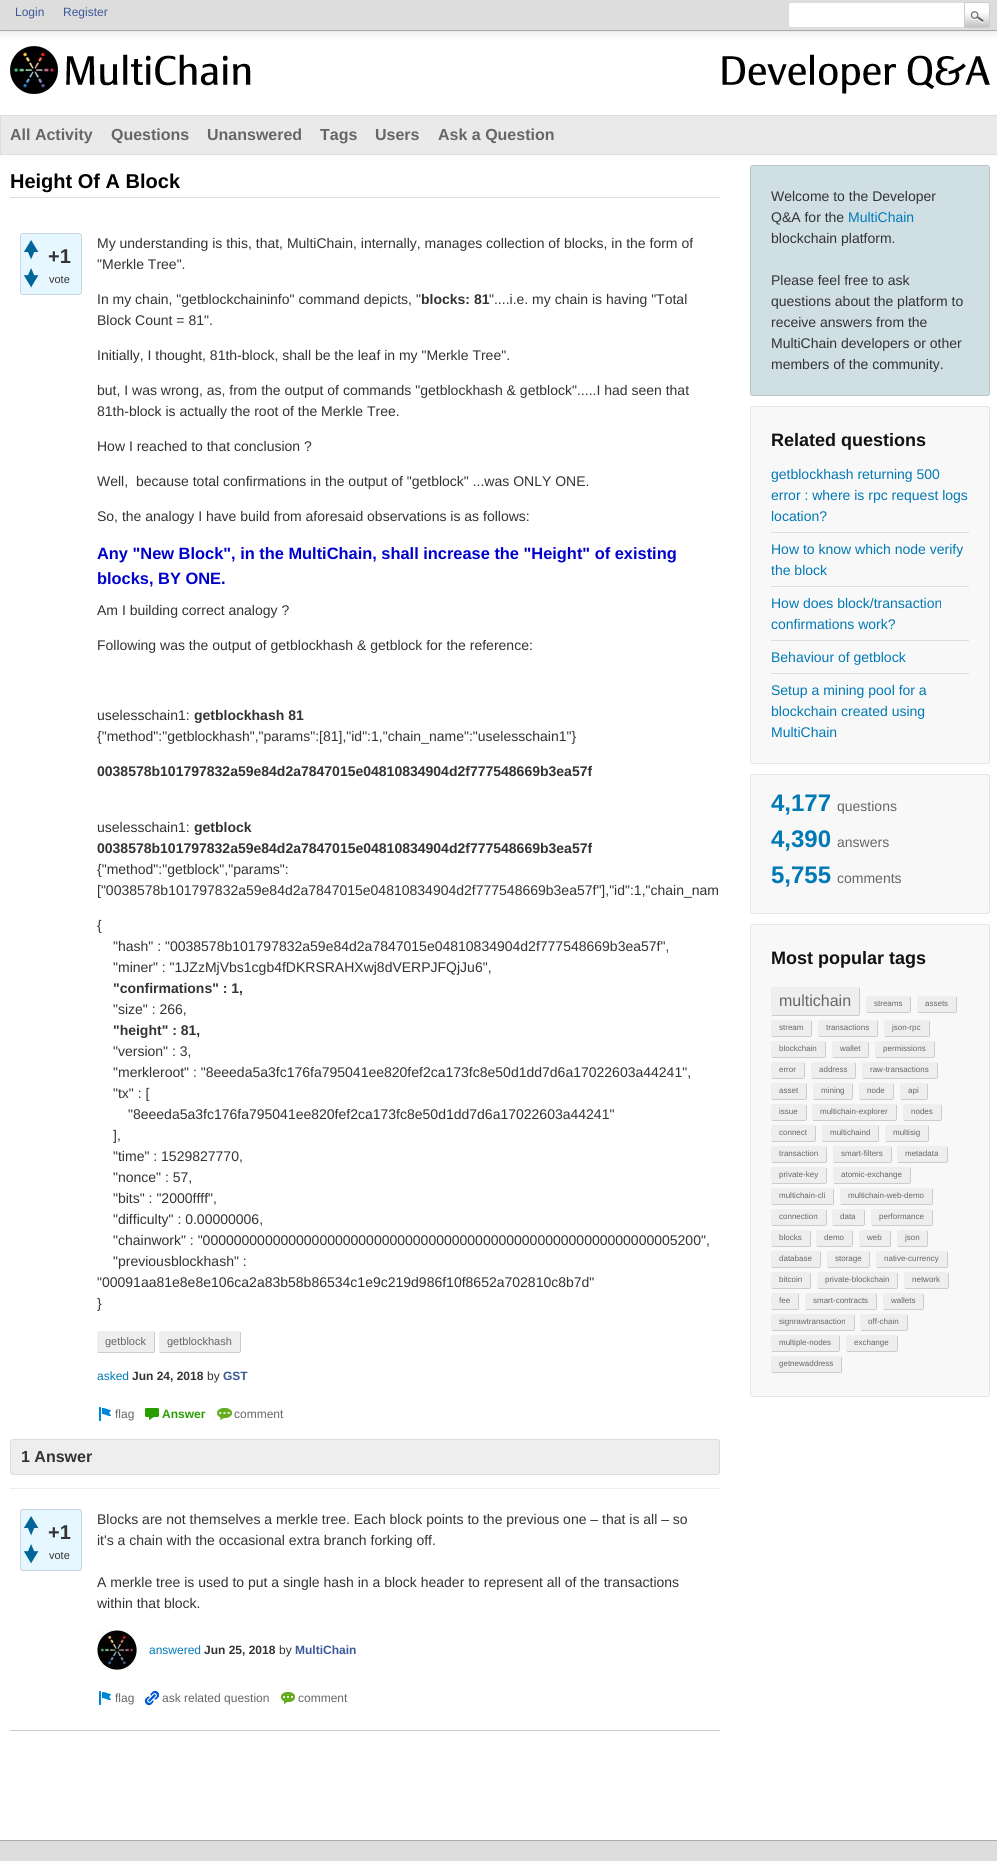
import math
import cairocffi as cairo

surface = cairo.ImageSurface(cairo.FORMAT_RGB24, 997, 1861)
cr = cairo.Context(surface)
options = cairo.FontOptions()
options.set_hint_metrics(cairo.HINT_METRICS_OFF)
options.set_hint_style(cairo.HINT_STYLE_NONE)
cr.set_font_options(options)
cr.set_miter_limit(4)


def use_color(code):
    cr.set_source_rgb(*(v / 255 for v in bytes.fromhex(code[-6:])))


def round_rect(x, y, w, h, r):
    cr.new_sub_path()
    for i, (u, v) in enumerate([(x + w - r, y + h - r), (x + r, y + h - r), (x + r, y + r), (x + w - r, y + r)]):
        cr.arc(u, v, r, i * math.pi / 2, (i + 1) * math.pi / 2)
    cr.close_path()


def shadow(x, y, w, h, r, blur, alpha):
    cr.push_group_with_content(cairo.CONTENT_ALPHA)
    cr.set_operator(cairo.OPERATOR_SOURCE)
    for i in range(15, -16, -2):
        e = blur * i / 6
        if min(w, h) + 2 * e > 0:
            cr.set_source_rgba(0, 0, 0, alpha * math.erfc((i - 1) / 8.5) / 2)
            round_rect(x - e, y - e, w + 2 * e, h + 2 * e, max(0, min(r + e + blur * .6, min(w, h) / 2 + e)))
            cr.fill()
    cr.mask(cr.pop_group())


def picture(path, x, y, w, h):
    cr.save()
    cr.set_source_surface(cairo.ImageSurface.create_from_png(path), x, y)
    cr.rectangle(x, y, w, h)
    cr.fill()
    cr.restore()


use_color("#ffffff")
cr.paint()
use_color("#000000")
shadow(0, 0, 997, 31, 0, 5, 0.15)
use_color("#dddddd")
cr.rectangle(0, 0, 997, 30)
cr.fill()
use_color("#aaaaaa")
cr.rectangle(0, 30, 997, 1)
cr.fill()
cr.select_font_face("Liberation Sans")
cr.set_font_size(12)
use_color("#3b5998")
cr.move_to(15, 16)
cr.show_text("Login")
cr.move_to(63, 16)
cr.show_text("Register")
use_color("#ffffff")
cr.new_path()
cr.move_to(791, 2.5)
cr.line_to(964.5, 2.5)
cr.line_to(964.5, 27.5)
cr.line_to(791, 27.5)
cr.curve_to(789.5, 27.5, 788.5, 26.5, 788.5, 25)
cr.line_to(788.5, 5)
cr.curve_to(788.5, 3.5, 789.5, 2.5, 791, 2.5)
cr.close_path()
cr.fill_preserve()
use_color("#dddddd")
cr.set_line_width(1)
cr.stroke()
picture("img1.png", 965, 3, 25, 25)
cr.new_path()
cr.move_to(964.5, 2.5)
cr.line_to(987, 2.5)
cr.curve_to(988.5, 2.5, 989.5, 3.5, 989.5, 5)
cr.line_to(989.5, 25)
cr.curve_to(989.5, 26.5, 988.5, 27.5, 987, 27.5)
cr.line_to(964.5, 27.5)
cr.close_path()
use_color("#cccccc")
cr.stroke()
picture("img2.png", 10, 46, 241, 48)
picture("img3.png", 722, 54, 268, 40)
use_color("#eaeaea")
cr.rectangle(0.5, 115.5, 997, 39)
cr.fill_preserve()
use_color("#dddddd")
cr.stroke()
cr.select_font_face("Liberation Sans", cairo.FONT_SLANT_NORMAL, cairo.FONT_WEIGHT_BOLD)
cr.set_font_size(16)
use_color("#666666")
cr.move_to(10, 140)
cr.show_text("All Activity")
cr.move_to(111, 140)
cr.show_text("Questions")
cr.move_to(207, 140)
cr.show_text("Unanswered")
cr.move_to(320, 140)
cr.show_text("Tags")
cr.move_to(375, 140)
cr.show_text("Users")
cr.move_to(438, 140)
cr.show_text("Ask a Question")
use_color("#dddddd")
cr.rectangle(10, 197, 710, 1)
cr.fill()
cr.set_font_size(20)
use_color("#000000")
cr.move_to(10, 188)
cr.show_text("Height Of A Block")
use_color("#e7f7ff")
round_rect(20.5, 233.5, 61, 61, 2.5)
cr.fill_preserve()
use_color("#c5d6df")
cr.stroke()
picture("img4.png", 24, 240, 15, 20)
picture("img5.png", 23, 268, 16, 20)
use_color("#333333")
cr.move_to(48, 263)
cr.show_text("+1")
cr.select_font_face("Liberation Sans")
cr.set_font_size(11)
cr.move_to(49, 283)
cr.show_text("vote")
cr.set_font_size(14)
cr.move_to(97, 248)
cr.show_text("My understanding is this, that, MultiChain, internally, manages collection of blocks, in the form of")
cr.move_to(97, 269)
cr.show_text("\"Merkle Tree\".")
cr.move_to(97, 304)
cr.show_text("In my chain, \"getblockchaininfo\" command depicts, \"")
cr.select_font_face("Liberation Sans", cairo.FONT_SLANT_NORMAL, cairo.FONT_WEIGHT_BOLD)
cr.move_to(421, 304)
cr.show_text("blocks: 81")
cr.select_font_face("Liberation Sans")
cr.move_to(489, 304)
cr.show_text("\"....i.e. my chain is having \"Total")
cr.move_to(97, 325)
cr.show_text("Block Count = 81\".")
cr.move_to(97, 360)
cr.show_text("Initially, I thought, 81th-block, shall be the leaf in my \"Merkle Tree\".")
cr.move_to(97, 395)
cr.show_text("but, I was wrong, as, from the output of commands \"getblockhash & getblock\".....I had seen that")
cr.move_to(97, 416)
cr.show_text("81th-block is actually the root of the Merkle Tree.")
cr.move_to(97, 451)
cr.show_text("How I reached to that conclusion ?")
cr.move_to(97, 486)
cr.show_text("Well,  because total confirmations in the output of \"getblock\" ...was ONLY ONE.")
cr.move_to(97, 521)
cr.show_text("So, the analogy I have build from aforesaid observations is as follows:")
cr.select_font_face("Liberation Sans", cairo.FONT_SLANT_NORMAL, cairo.FONT_WEIGHT_BOLD)
cr.set_font_size(16.4)
use_color("#0000cd")
cr.move_to(97, 559)
cr.show_text("Any \"New Block\", in the MultiChain, shall increase the \"Height\" of existing")
cr.move_to(97, 584)
cr.show_text("blocks, BY ONE.")
cr.select_font_face("Liberation Sans")
cr.set_font_size(14)
use_color("#333333")
cr.move_to(97, 615)
cr.show_text("Am I building correct analogy ?")
cr.move_to(97, 650)
cr.show_text("Following was the output of getblockhash & getblock for the reference:")
cr.move_to(97, 720)
cr.show_text("uselesschain1:")
cr.select_font_face("Liberation Sans", cairo.FONT_SLANT_NORMAL, cairo.FONT_WEIGHT_BOLD)
cr.move_to(194, 720)
cr.show_text("getblockhash 81")
cr.select_font_face("Liberation Sans")
cr.move_to(97, 741)
cr.show_text("{\"method\":\"getblockhash\",\"params\":[81],\"id\":1,\"chain_name\":\"uselesschain1\"}")
cr.select_font_face("Liberation Sans", cairo.FONT_SLANT_NORMAL, cairo.FONT_WEIGHT_BOLD)
cr.move_to(97, 776)
cr.show_text("0038578b101797832a59e84d2a7847015e04810834904d2f777548669b3ea57f")
cr.select_font_face("Liberation Sans")
cr.move_to(97, 832)
cr.show_text("uselesschain1:")
cr.select_font_face("Liberation Sans", cairo.FONT_SLANT_NORMAL, cairo.FONT_WEIGHT_BOLD)
cr.move_to(194, 832)
cr.show_text("getblock")
cr.move_to(97, 853)
cr.show_text("0038578b101797832a59e84d2a7847015e04810834904d2f777548669b3ea57f")
cr.select_font_face("Liberation Sans")
cr.move_to(97, 874)
cr.show_text("{\"method\":\"getblock\",\"params\":")
cr.move_to(97, 895)
cr.show_text("[\"0038578b101797832a59e84d2a7847015e04810834904d2f777548669b3ea57f\"],\"id\":1,\"chain_nam")
cr.move_to(97, 930)
cr.show_text("{")
cr.move_to(113, 951)
cr.show_text("\"hash\" : \"0038578b101797832a59e84d2a7847015e04810834904d2f777548669b3ea57f\",")
cr.move_to(113, 972)
cr.show_text("\"miner\" : \"1JZzMjVbs1cgb4fDKRSRAHXwj8dVERPJFQjJu6\",")
cr.select_font_face("Liberation Sans", cairo.FONT_SLANT_NORMAL, cairo.FONT_WEIGHT_BOLD)
cr.move_to(113, 993)
cr.show_text("\"confirmations\" : 1,")
cr.select_font_face("Liberation Sans")
cr.move_to(113, 1014)
cr.show_text("\"size\" : 266,")
cr.select_font_face("Liberation Sans", cairo.FONT_SLANT_NORMAL, cairo.FONT_WEIGHT_BOLD)
cr.move_to(113, 1035)
cr.show_text("\"height\" : 81,")
cr.select_font_face("Liberation Sans")
cr.move_to(113, 1056)
cr.show_text("\"version\" : 3,")
cr.move_to(113, 1077)
cr.show_text("\"merkleroot\" : \"8eeeda5a3fc176fa795041ee820fef2ca173fc8e50d1dd7d6a17022603a44241\",")
cr.move_to(113, 1098)
cr.show_text("\"tx\" : [")
cr.move_to(128, 1119)
cr.show_text("\"8eeeda5a3fc176fa795041ee820fef2ca173fc8e50d1dd7d6a17022603a44241\"")
cr.move_to(113, 1140)
cr.show_text("],")
cr.move_to(113, 1161)
cr.show_text("\"time\" : 1529827770,")
cr.move_to(113, 1182)
cr.show_text("\"nonce\" : 57,")
cr.move_to(113, 1203)
cr.show_text("\"bits\" : \"2000ffff\",")
cr.move_to(113, 1224)
cr.show_text("\"difficulty\" : 0.00000006,")
cr.move_to(113, 1245)
cr.show_text("\"chainwork\" : \"0000000000000000000000000000000000000000000000000000000000005200\",")
cr.move_to(113, 1266)
cr.show_text("\"previousblockhash\" :")
cr.move_to(97, 1287)
cr.show_text("\"00091aa81e8e8e106ca2a83b58b86534c1e9c219d986f10f8652a702810c8b7d\"")
cr.move_to(97, 1308)
cr.show_text("}")
use_color("#eeeeee")
round_rect(97, 1331, 58, 22, 2)
cr.fill()
use_color("#cccccc")
cr.rectangle(154, 1332, 1, 20)
cr.fill()
cr.rectangle(98, 1352, 56, 1)
cr.fill()
cr.set_font_size(11)
use_color("#666666")
cr.move_to(105, 1345)
cr.show_text("getblock")
use_color("#eeeeee")
round_rect(159, 1331, 82, 22, 2)
cr.fill()
use_color("#cccccc")
cr.rectangle(240, 1332, 1, 20)
cr.fill()
cr.rectangle(160, 1352, 80, 1)
cr.fill()
use_color("#666666")
cr.move_to(167, 1345)
cr.show_text("getblockhash")
cr.set_font_size(12)
use_color("#0179b5")
cr.move_to(97, 1380)
cr.show_text("asked")
cr.select_font_face("Liberation Sans", cairo.FONT_SLANT_NORMAL, cairo.FONT_WEIGHT_BOLD)
use_color("#333333")
cr.move_to(132, 1380)
cr.show_text("Jun 24, 2018")
cr.select_font_face("Liberation Sans")
cr.move_to(207, 1380)
cr.show_text("by")
cr.select_font_face("Liberation Sans", cairo.FONT_SLANT_NORMAL, cairo.FONT_WEIGHT_BOLD)
use_color("#3b5998")
cr.move_to(223, 1380)
cr.show_text("GST")
picture("img6.png", 99, 1407, 12, 14)
cr.select_font_face("Liberation Sans")
use_color("#666666")
cr.move_to(115, 1418)
cr.show_text("flag")
picture("img7.png", 144, 1408, 15, 12)
cr.select_font_face("Liberation Sans", cairo.FONT_SLANT_NORMAL, cairo.FONT_WEIGHT_BOLD)
use_color("#289e00")
cr.move_to(162, 1418)
cr.show_text("Answer")
picture("img8.png", 216, 1408, 16, 12)
cr.select_font_face("Liberation Sans")
use_color("#666666")
cr.move_to(234, 1418)
cr.show_text("comment")
use_color("#eeeeee")
round_rect(10.5, 1439.5, 709, 35, 2.5)
cr.fill_preserve()
use_color("#dddddd")
cr.stroke()
cr.select_font_face("Liberation Sans", cairo.FONT_SLANT_NORMAL, cairo.FONT_WEIGHT_BOLD)
cr.set_font_size(16)
use_color("#333333")
cr.move_to(21, 1462)
cr.show_text("1 Answer")
use_color("#eeeeee")
cr.rectangle(10, 1488, 710, 1)
cr.fill()
use_color("#cccccc")
cr.rectangle(10, 1730, 710, 1)
cr.fill()
use_color("#e7f7ff")
round_rect(20.5, 1509.5, 61, 61, 2.5)
cr.fill_preserve()
use_color("#c5d6df")
cr.stroke()
picture("img4.png", 24, 1516, 15, 20)
picture("img5.png", 23, 1544, 16, 20)
cr.set_font_size(20)
use_color("#333333")
cr.move_to(48, 1539)
cr.show_text("+1")
cr.select_font_face("Liberation Sans")
cr.set_font_size(11)
cr.move_to(49, 1559)
cr.show_text("vote")
cr.set_font_size(14)
cr.move_to(97, 1524)
cr.show_text("Blocks are not themselves a merkle tree. Each block points to the previous one – that is all – so")
cr.move_to(97, 1545)
cr.show_text("it's a chain with the occasional extra branch forking off.")
cr.move_to(97, 1587)
cr.show_text("A merkle tree is used to put a single hash in a block header to represent all of the transactions")
cr.move_to(97, 1608)
cr.show_text("within that block.")
picture("img9.png", 97, 1630, 40, 40)
cr.set_font_size(12)
use_color("#0179b5")
cr.move_to(149, 1654)
cr.show_text("answered")
cr.select_font_face("Liberation Sans", cairo.FONT_SLANT_NORMAL, cairo.FONT_WEIGHT_BOLD)
use_color("#333333")
cr.move_to(204, 1654)
cr.show_text("Jun 25, 2018")
cr.select_font_face("Liberation Sans")
cr.move_to(279, 1654)
cr.show_text("by")
cr.select_font_face("Liberation Sans", cairo.FONT_SLANT_NORMAL, cairo.FONT_WEIGHT_BOLD)
use_color("#3b5998")
cr.move_to(295, 1654)
cr.show_text("MultiChain")
picture("img6.png", 99, 1691, 12, 14)
cr.select_font_face("Liberation Sans")
use_color("#666666")
cr.move_to(115, 1702)
cr.show_text("flag")
picture("img10.png", 144, 1691, 15, 15)
cr.move_to(162, 1702)
cr.show_text("ask related question")
picture("img11.png", 280, 1692, 15, 12)
cr.move_to(298, 1702)
cr.show_text("comment")
use_color("#d0dfe4")
round_rect(750.5, 165.5, 239, 230, 2.5)
cr.fill_preserve()
use_color("#b6c4c8")
cr.stroke()
cr.set_font_size(14)
use_color("#333333")
cr.move_to(771, 201)
cr.show_text("Welcome to the Developer")
cr.move_to(771, 222)
cr.show_text("Q&A for the")
use_color("#0179b5")
cr.move_to(848, 222)
cr.show_text("MultiChain")
use_color("#333333")
cr.move_to(771, 243)
cr.show_text("blockchain platform.")
cr.move_to(771, 285)
cr.show_text("Please feel free to ask")
cr.move_to(771, 306)
cr.show_text("questions about the platform to")
cr.move_to(771, 327)
cr.show_text("receive answers from the")
cr.move_to(771, 348)
cr.show_text("MultiChain developers or other")
cr.move_to(771, 369)
cr.show_text("members of the community.")
use_color("#f8f8f8")
round_rect(750.5, 406.5, 239, 357, 2.5)
cr.fill_preserve()
use_color("#e5e5e5")
cr.stroke()
cr.select_font_face("Liberation Sans", cairo.FONT_SLANT_NORMAL, cairo.FONT_WEIGHT_BOLD)
cr.set_font_size(18)
use_color("#111111")
cr.move_to(771, 446)
cr.show_text("Related questions")
use_color("#dddddd")
cr.rectangle(771, 532, 198, 1)
cr.fill()
cr.select_font_face("Liberation Sans")
cr.set_font_size(14)
use_color("#0179b5")
cr.move_to(771, 479)
cr.show_text("getblockhash returning 500")
cr.move_to(771, 500)
cr.show_text("error : where is rpc request logs")
cr.move_to(771, 521)
cr.show_text("location?")
use_color("#dddddd")
cr.rectangle(771, 586, 198, 1)
cr.fill()
use_color("#0179b5")
cr.move_to(771, 554)
cr.show_text("How to know which node verify")
cr.move_to(771, 575)
cr.show_text("the block")
use_color("#dddddd")
cr.rectangle(771, 640, 198, 1)
cr.fill()
use_color("#0179b5")
cr.move_to(771, 608)
cr.show_text("How does block/transaction")
cr.move_to(771, 629)
cr.show_text("confirmations work?")
use_color("#dddddd")
cr.rectangle(771, 673, 198, 1)
cr.fill()
use_color("#0179b5")
cr.move_to(771, 662)
cr.show_text("Behaviour of getblock")
cr.move_to(771, 695)
cr.show_text("Setup a mining pool for a")
cr.move_to(771, 716)
cr.show_text("blockchain created using")
cr.move_to(771, 737)
cr.show_text("MultiChain")
use_color("#f8f8f8")
round_rect(750.5, 774.5, 239, 139, 2.5)
cr.fill_preserve()
use_color("#e5e5e5")
cr.stroke()
cr.select_font_face("Liberation Sans", cairo.FONT_SLANT_NORMAL, cairo.FONT_WEIGHT_BOLD)
cr.set_font_size(24)
use_color("#0179b5")
cr.move_to(771, 811)
cr.show_text("4,177")
cr.select_font_face("Liberation Sans")
cr.set_font_size(14)
use_color("#666666")
cr.move_to(837, 811)
cr.show_text("questions")
cr.select_font_face("Liberation Sans", cairo.FONT_SLANT_NORMAL, cairo.FONT_WEIGHT_BOLD)
cr.set_font_size(24)
use_color("#0179b5")
cr.move_to(771, 847)
cr.show_text("4,390")
cr.select_font_face("Liberation Sans")
cr.set_font_size(14)
use_color("#666666")
cr.move_to(837, 847)
cr.show_text("answers")
cr.select_font_face("Liberation Sans", cairo.FONT_SLANT_NORMAL, cairo.FONT_WEIGHT_BOLD)
cr.set_font_size(24)
use_color("#0179b5")
cr.move_to(771, 883)
cr.show_text("5,755")
cr.select_font_face("Liberation Sans")
cr.set_font_size(14)
use_color("#666666")
cr.move_to(837, 883)
cr.show_text("comments")
use_color("#f8f8f8")
round_rect(750.5, 924.5, 239, 472, 2.5)
cr.fill_preserve()
use_color("#e5e5e5")
cr.stroke()
cr.select_font_face("Liberation Sans", cairo.FONT_SLANT_NORMAL, cairo.FONT_WEIGHT_BOLD)
cr.set_font_size(18)
use_color("#111111")
cr.move_to(771, 964)
cr.show_text("Most popular tags")
use_color("#eeeeee")
round_rect(771, 987, 89, 29, 2)
cr.fill()
use_color("#cccccc")
cr.rectangle(859, 988, 1, 27)
cr.fill()
cr.rectangle(772, 1015, 87, 1)
cr.fill()
cr.select_font_face("Liberation Sans")
cr.set_font_size(16)
use_color("#666666")
cr.move_to(779, 1006)
cr.show_text("multichain")
use_color("#eeeeee")
round_rect(866, 996, 45, 17, 2)
cr.fill()
use_color("#cccccc")
cr.rectangle(910, 997, 1, 15)
cr.fill()
cr.rectangle(867, 1012, 43, 1)
cr.fill()
cr.set_font_size(8)
use_color("#666666")
cr.move_to(874, 1006)
cr.show_text("streams")
use_color("#eeeeee")
round_rect(917, 996, 40, 17, 2)
cr.fill()
use_color("#cccccc")
cr.rectangle(956, 997, 1, 15)
cr.fill()
cr.rectangle(918, 1012, 38, 1)
cr.fill()
use_color("#666666")
cr.move_to(925, 1006)
cr.show_text("assets")
use_color("#eeeeee")
round_rect(771, 1020, 41, 17, 2)
cr.fill()
use_color("#cccccc")
cr.rectangle(811, 1021, 1, 15)
cr.fill()
cr.rectangle(772, 1036, 39, 1)
cr.fill()
use_color("#666666")
cr.move_to(779, 1030)
cr.show_text("stream")
use_color("#eeeeee")
round_rect(818, 1020, 60, 17, 2)
cr.fill()
use_color("#cccccc")
cr.rectangle(877, 1021, 1, 15)
cr.fill()
cr.rectangle(819, 1036, 58, 1)
cr.fill()
use_color("#666666")
cr.move_to(826, 1030)
cr.show_text("transactions")
use_color("#eeeeee")
round_rect(884, 1020, 46, 17, 2)
cr.fill()
use_color("#cccccc")
cr.rectangle(929, 1021, 1, 15)
cr.fill()
cr.rectangle(885, 1036, 44, 1)
cr.fill()
use_color("#666666")
cr.move_to(892, 1030)
cr.show_text("json-rpc")
use_color("#eeeeee")
round_rect(771, 1041, 55, 17, 2)
cr.fill()
use_color("#cccccc")
cr.rectangle(825, 1042, 1, 15)
cr.fill()
cr.rectangle(772, 1057, 53, 1)
cr.fill()
use_color("#666666")
cr.move_to(779, 1051)
cr.show_text("blockchain")
use_color("#eeeeee")
round_rect(832, 1041, 37, 17, 2)
cr.fill()
use_color("#cccccc")
cr.rectangle(868, 1042, 1, 15)
cr.fill()
cr.rectangle(833, 1057, 35, 1)
cr.fill()
use_color("#666666")
cr.move_to(840, 1051)
cr.show_text("wallet")
use_color("#eeeeee")
round_rect(875, 1041, 60, 17, 2)
cr.fill()
use_color("#cccccc")
cr.rectangle(934, 1042, 1, 15)
cr.fill()
cr.rectangle(876, 1057, 58, 1)
cr.fill()
use_color("#666666")
cr.move_to(883, 1051)
cr.show_text("permissions")
use_color("#eeeeee")
round_rect(771, 1062, 34, 17, 2)
cr.fill()
use_color("#cccccc")
cr.rectangle(804, 1063, 1, 15)
cr.fill()
cr.rectangle(772, 1078, 32, 1)
cr.fill()
use_color("#666666")
cr.move_to(779, 1072)
cr.show_text("error")
use_color("#eeeeee")
round_rect(811, 1062, 45, 17, 2)
cr.fill()
use_color("#cccccc")
cr.rectangle(855, 1063, 1, 15)
cr.fill()
cr.rectangle(812, 1078, 43, 1)
cr.fill()
use_color("#666666")
cr.move_to(819, 1072)
cr.show_text("address")
use_color("#eeeeee")
round_rect(862, 1062, 76, 17, 2)
cr.fill()
use_color("#cccccc")
cr.rectangle(937, 1063, 1, 15)
cr.fill()
cr.rectangle(863, 1078, 74, 1)
cr.fill()
use_color("#666666")
cr.move_to(870, 1072)
cr.show_text("raw-transactions")
use_color("#eeeeee")
round_rect(771, 1083, 36, 17, 2)
cr.fill()
use_color("#cccccc")
cr.rectangle(806, 1084, 1, 15)
cr.fill()
cr.rectangle(772, 1099, 34, 1)
cr.fill()
use_color("#666666")
cr.move_to(779, 1093)
cr.show_text("asset")
use_color("#eeeeee")
round_rect(813, 1083, 40, 17, 2)
cr.fill()
use_color("#cccccc")
cr.rectangle(852, 1084, 1, 15)
cr.fill()
cr.rectangle(814, 1099, 38, 1)
cr.fill()
use_color("#666666")
cr.move_to(821, 1093)
cr.show_text("mining")
use_color("#eeeeee")
round_rect(859, 1083, 35, 17, 2)
cr.fill()
use_color("#cccccc")
cr.rectangle(893, 1084, 1, 15)
cr.fill()
cr.rectangle(860, 1099, 33, 1)
cr.fill()
use_color("#666666")
cr.move_to(867, 1093)
cr.show_text("node")
use_color("#eeeeee")
round_rect(900, 1083, 28, 17, 2)
cr.fill()
use_color("#cccccc")
cr.rectangle(927, 1084, 1, 15)
cr.fill()
cr.rectangle(901, 1099, 26, 1)
cr.fill()
use_color("#666666")
cr.move_to(908, 1093)
cr.show_text("api")
use_color("#eeeeee")
round_rect(771, 1104, 36, 17, 2)
cr.fill()
use_color("#cccccc")
cr.rectangle(806, 1105, 1, 15)
cr.fill()
cr.rectangle(772, 1120, 34, 1)
cr.fill()
use_color("#666666")
cr.move_to(779, 1114)
cr.show_text("issue")
use_color("#eeeeee")
round_rect(812, 1104, 85, 17, 2)
cr.fill()
use_color("#cccccc")
cr.rectangle(896, 1105, 1, 15)
cr.fill()
cr.rectangle(813, 1120, 83, 1)
cr.fill()
use_color("#666666")
cr.move_to(820, 1114)
cr.show_text("multichain-explorer")
use_color("#eeeeee")
round_rect(903, 1104, 39, 17, 2)
cr.fill()
use_color("#cccccc")
cr.rectangle(941, 1105, 1, 15)
cr.fill()
cr.rectangle(904, 1120, 37, 1)
cr.fill()
use_color("#666666")
cr.move_to(911, 1114)
cr.show_text("nodes")
use_color("#eeeeee")
round_rect(771, 1125, 45, 17, 2)
cr.fill()
use_color("#cccccc")
cr.rectangle(815, 1126, 1, 15)
cr.fill()
cr.rectangle(772, 1141, 43, 1)
cr.fill()
use_color("#666666")
cr.move_to(779, 1135)
cr.show_text("connect")
use_color("#eeeeee")
round_rect(822, 1125, 57, 17, 2)
cr.fill()
use_color("#cccccc")
cr.rectangle(878, 1126, 1, 15)
cr.fill()
cr.rectangle(823, 1141, 55, 1)
cr.fill()
use_color("#666666")
cr.move_to(830, 1135)
cr.show_text("multichaind")
use_color("#eeeeee")
round_rect(885, 1125, 44, 17, 2)
cr.fill()
use_color("#cccccc")
cr.rectangle(928, 1126, 1, 15)
cr.fill()
cr.rectangle(886, 1141, 42, 1)
cr.fill()
use_color("#666666")
cr.move_to(893, 1135)
cr.show_text("multisig")
use_color("#eeeeee")
round_rect(771, 1146, 56, 17, 2)
cr.fill()
use_color("#cccccc")
cr.rectangle(826, 1147, 1, 15)
cr.fill()
cr.rectangle(772, 1162, 54, 1)
cr.fill()
use_color("#666666")
cr.move_to(779, 1156)
cr.show_text("transaction")
use_color("#eeeeee")
round_rect(833, 1146, 59, 17, 2)
cr.fill()
use_color("#cccccc")
cr.rectangle(891, 1147, 1, 15)
cr.fill()
cr.rectangle(834, 1162, 57, 1)
cr.fill()
use_color("#666666")
cr.move_to(841, 1156)
cr.show_text("smart-filters")
use_color("#eeeeee")
round_rect(897, 1146, 51, 17, 2)
cr.fill()
use_color("#cccccc")
cr.rectangle(947, 1147, 1, 15)
cr.fill()
cr.rectangle(898, 1162, 49, 1)
cr.fill()
use_color("#666666")
cr.move_to(905, 1156)
cr.show_text("metadata")
use_color("#eeeeee")
round_rect(771, 1167, 56, 17, 2)
cr.fill()
use_color("#cccccc")
cr.rectangle(826, 1168, 1, 15)
cr.fill()
cr.rectangle(772, 1183, 54, 1)
cr.fill()
use_color("#666666")
cr.move_to(779, 1177)
cr.show_text("private-key")
use_color("#eeeeee")
round_rect(833, 1167, 78, 17, 2)
cr.fill()
use_color("#cccccc")
cr.rectangle(910, 1168, 1, 15)
cr.fill()
cr.rectangle(834, 1183, 76, 1)
cr.fill()
use_color("#666666")
cr.move_to(841, 1177)
cr.show_text("atomic-exchange")
use_color("#eeeeee")
round_rect(771, 1188, 63, 17, 2)
cr.fill()
use_color("#cccccc")
cr.rectangle(833, 1189, 1, 15)
cr.fill()
cr.rectangle(772, 1204, 61, 1)
cr.fill()
use_color("#666666")
cr.move_to(779, 1198)
cr.show_text("multichain-cli")
use_color("#eeeeee")
round_rect(840, 1188, 93, 17, 2)
cr.fill()
use_color("#cccccc")
cr.rectangle(932, 1189, 1, 15)
cr.fill()
cr.rectangle(841, 1204, 91, 1)
cr.fill()
use_color("#666666")
cr.move_to(848, 1198)
cr.show_text("multichain-web-demo")
use_color("#eeeeee")
round_rect(771, 1209, 56, 17, 2)
cr.fill()
use_color("#cccccc")
cr.rectangle(826, 1210, 1, 15)
cr.fill()
cr.rectangle(772, 1225, 54, 1)
cr.fill()
use_color("#666666")
cr.move_to(779, 1219)
cr.show_text("connection")
use_color("#eeeeee")
round_rect(832, 1209, 33, 17, 2)
cr.fill()
use_color("#cccccc")
cr.rectangle(864, 1210, 1, 15)
cr.fill()
cr.rectangle(833, 1225, 31, 1)
cr.fill()
use_color("#666666")
cr.move_to(840, 1219)
cr.show_text("data")
use_color("#eeeeee")
round_rect(871, 1209, 62, 17, 2)
cr.fill()
use_color("#cccccc")
cr.rectangle(932, 1210, 1, 15)
cr.fill()
cr.rectangle(872, 1225, 60, 1)
cr.fill()
use_color("#666666")
cr.move_to(879, 1219)
cr.show_text("performance")
use_color("#eeeeee")
round_rect(771, 1230, 40, 17, 2)
cr.fill()
use_color("#cccccc")
cr.rectangle(810, 1231, 1, 15)
cr.fill()
cr.rectangle(772, 1246, 38, 1)
cr.fill()
use_color("#666666")
cr.move_to(779, 1240)
cr.show_text("blocks")
use_color("#eeeeee")
round_rect(816, 1230, 37, 17, 2)
cr.fill()
use_color("#cccccc")
cr.rectangle(852, 1231, 1, 15)
cr.fill()
cr.rectangle(817, 1246, 35, 1)
cr.fill()
use_color("#666666")
cr.move_to(824, 1240)
cr.show_text("demo")
use_color("#eeeeee")
round_rect(859, 1230, 32, 17, 2)
cr.fill()
use_color("#cccccc")
cr.rectangle(890, 1231, 1, 15)
cr.fill()
cr.rectangle(860, 1246, 30, 1)
cr.fill()
use_color("#666666")
cr.move_to(867, 1240)
cr.show_text("web")
use_color("#eeeeee")
round_rect(897, 1230, 31, 17, 2)
cr.fill()
use_color("#cccccc")
cr.rectangle(927, 1231, 1, 15)
cr.fill()
cr.rectangle(898, 1246, 29, 1)
cr.fill()
use_color("#666666")
cr.move_to(905, 1240)
cr.show_text("json")
use_color("#eeeeee")
round_rect(771, 1251, 50, 17, 2)
cr.fill()
use_color("#cccccc")
cr.rectangle(820, 1252, 1, 15)
cr.fill()
cr.rectangle(772, 1267, 48, 1)
cr.fill()
use_color("#666666")
cr.move_to(779, 1261)
cr.show_text("database")
use_color("#eeeeee")
round_rect(827, 1251, 43, 17, 2)
cr.fill()
use_color("#cccccc")
cr.rectangle(869, 1252, 1, 15)
cr.fill()
cr.rectangle(828, 1267, 41, 1)
cr.fill()
use_color("#666666")
cr.move_to(835, 1261)
cr.show_text("storage")
use_color("#eeeeee")
round_rect(876, 1251, 72, 17, 2)
cr.fill()
use_color("#cccccc")
cr.rectangle(947, 1252, 1, 15)
cr.fill()
cr.rectangle(877, 1267, 70, 1)
cr.fill()
use_color("#666666")
cr.move_to(884, 1261)
cr.show_text("native-currency")
use_color("#eeeeee")
round_rect(771, 1272, 40, 17, 2)
cr.fill()
use_color("#cccccc")
cr.rectangle(810, 1273, 1, 15)
cr.fill()
cr.rectangle(772, 1288, 38, 1)
cr.fill()
use_color("#666666")
cr.move_to(779, 1282)
cr.show_text("bitcoin")
use_color("#eeeeee")
round_rect(817, 1272, 81, 17, 2)
cr.fill()
use_color("#cccccc")
cr.rectangle(897, 1273, 1, 15)
cr.fill()
cr.rectangle(818, 1288, 79, 1)
cr.fill()
use_color("#666666")
cr.move_to(825, 1282)
cr.show_text("private-blockchain")
use_color("#eeeeee")
round_rect(904, 1272, 45, 17, 2)
cr.fill()
use_color("#cccccc")
cr.rectangle(948, 1273, 1, 15)
cr.fill()
cr.rectangle(905, 1288, 43, 1)
cr.fill()
use_color("#666666")
cr.move_to(912, 1282)
cr.show_text("network")
use_color("#eeeeee")
round_rect(771, 1293, 28, 17, 2)
cr.fill()
use_color("#cccccc")
cr.rectangle(798, 1294, 1, 15)
cr.fill()
cr.rectangle(772, 1309, 26, 1)
cr.fill()
use_color("#666666")
cr.move_to(779, 1303)
cr.show_text("fee")
use_color("#eeeeee")
round_rect(805, 1293, 72, 17, 2)
cr.fill()
use_color("#cccccc")
cr.rectangle(876, 1294, 1, 15)
cr.fill()
cr.rectangle(806, 1309, 70, 1)
cr.fill()
use_color("#666666")
cr.move_to(813, 1303)
cr.show_text("smart-contracts")
use_color("#eeeeee")
round_rect(883, 1293, 41, 17, 2)
cr.fill()
use_color("#cccccc")
cr.rectangle(923, 1294, 1, 15)
cr.fill()
cr.rectangle(884, 1309, 39, 1)
cr.fill()
use_color("#666666")
cr.move_to(891, 1303)
cr.show_text("wallets")
use_color("#eeeeee")
round_rect(771, 1314, 84, 17, 2)
cr.fill()
use_color("#cccccc")
cr.rectangle(854, 1315, 1, 15)
cr.fill()
cr.rectangle(772, 1330, 82, 1)
cr.fill()
use_color("#666666")
cr.move_to(779, 1324)
cr.show_text("signrawtransaction")
use_color("#eeeeee")
round_rect(860, 1314, 48, 17, 2)
cr.fill()
use_color("#cccccc")
cr.rectangle(907, 1315, 1, 15)
cr.fill()
cr.rectangle(861, 1330, 46, 1)
cr.fill()
use_color("#666666")
cr.move_to(868, 1324)
cr.show_text("off-chain")
use_color("#eeeeee")
round_rect(771, 1335, 69, 17, 2)
cr.fill()
use_color("#cccccc")
cr.rectangle(839, 1336, 1, 15)
cr.fill()
cr.rectangle(772, 1351, 67, 1)
cr.fill()
use_color("#666666")
cr.move_to(779, 1345)
cr.show_text("multiple-nodes")
use_color("#eeeeee")
round_rect(846, 1335, 52, 17, 2)
cr.fill()
use_color("#cccccc")
cr.rectangle(897, 1336, 1, 15)
cr.fill()
cr.rectangle(847, 1351, 50, 1)
cr.fill()
use_color("#666666")
cr.move_to(854, 1345)
cr.show_text("exchange")
use_color("#eeeeee")
round_rect(771, 1356, 71, 17, 2)
cr.fill()
use_color("#cccccc")
cr.rectangle(841, 1357, 1, 15)
cr.fill()
cr.rectangle(772, 1372, 69, 1)
cr.fill()
use_color("#666666")
cr.move_to(779, 1366)
cr.show_text("getnewaddress")
use_color("#dddddd")
cr.rectangle(0, 1841, 997, 20)
cr.fill()
use_color("#aaaaaa")
cr.rectangle(0, 1840, 997, 1)
cr.fill()
surface.write_to_png("result.png")
